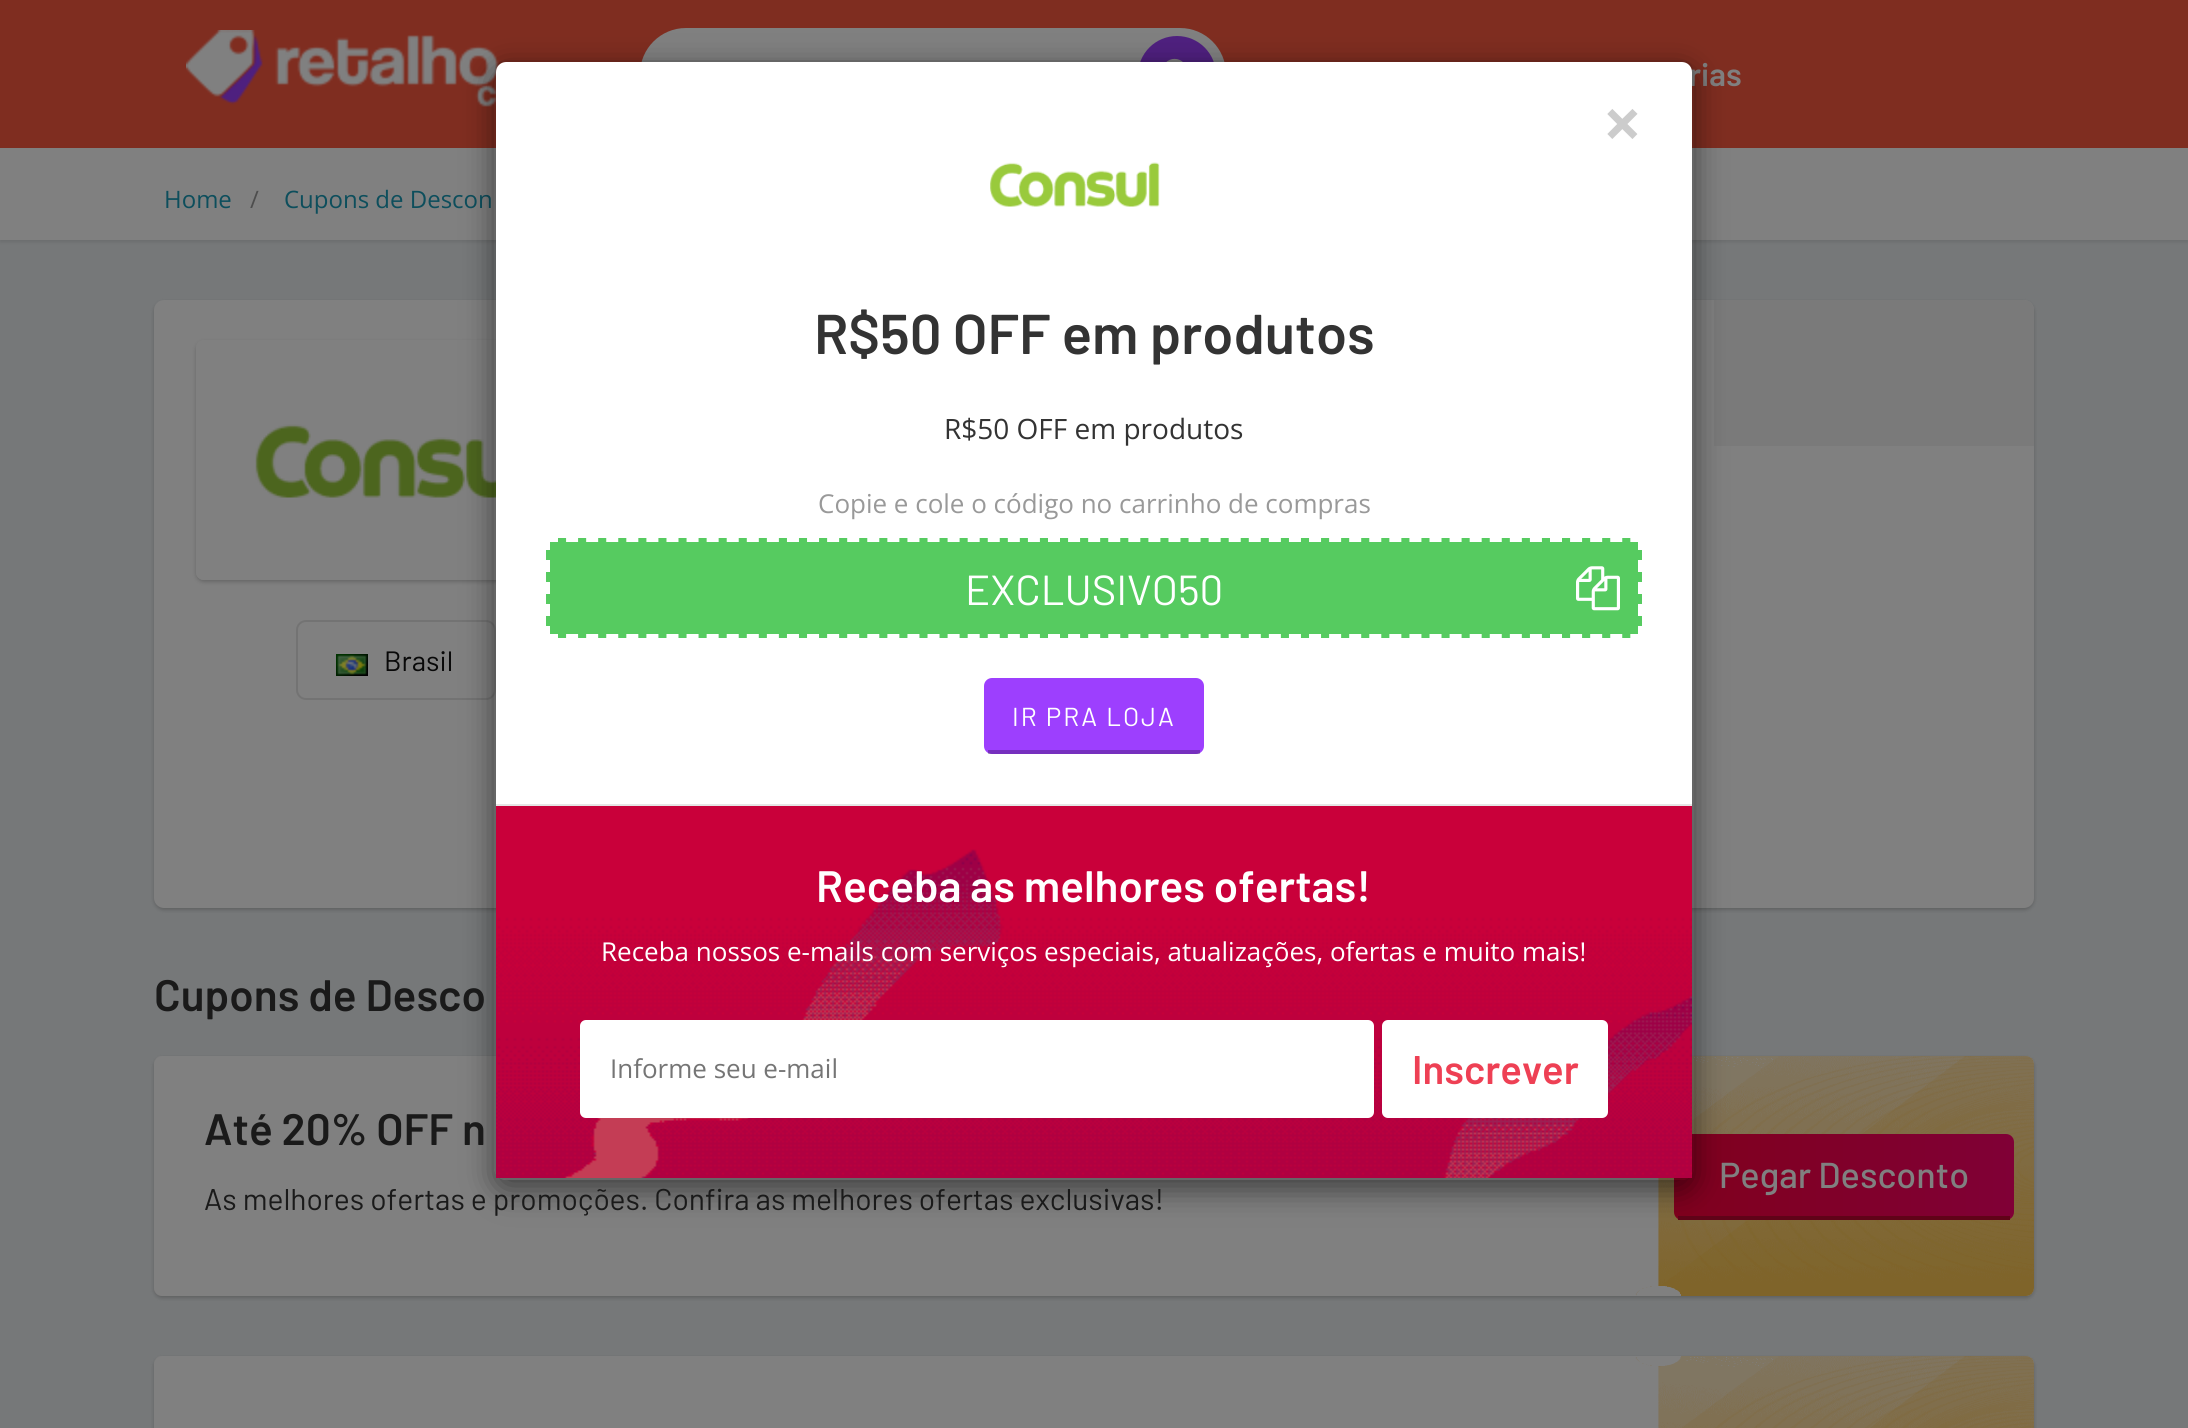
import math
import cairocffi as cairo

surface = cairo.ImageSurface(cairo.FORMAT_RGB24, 2188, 1428)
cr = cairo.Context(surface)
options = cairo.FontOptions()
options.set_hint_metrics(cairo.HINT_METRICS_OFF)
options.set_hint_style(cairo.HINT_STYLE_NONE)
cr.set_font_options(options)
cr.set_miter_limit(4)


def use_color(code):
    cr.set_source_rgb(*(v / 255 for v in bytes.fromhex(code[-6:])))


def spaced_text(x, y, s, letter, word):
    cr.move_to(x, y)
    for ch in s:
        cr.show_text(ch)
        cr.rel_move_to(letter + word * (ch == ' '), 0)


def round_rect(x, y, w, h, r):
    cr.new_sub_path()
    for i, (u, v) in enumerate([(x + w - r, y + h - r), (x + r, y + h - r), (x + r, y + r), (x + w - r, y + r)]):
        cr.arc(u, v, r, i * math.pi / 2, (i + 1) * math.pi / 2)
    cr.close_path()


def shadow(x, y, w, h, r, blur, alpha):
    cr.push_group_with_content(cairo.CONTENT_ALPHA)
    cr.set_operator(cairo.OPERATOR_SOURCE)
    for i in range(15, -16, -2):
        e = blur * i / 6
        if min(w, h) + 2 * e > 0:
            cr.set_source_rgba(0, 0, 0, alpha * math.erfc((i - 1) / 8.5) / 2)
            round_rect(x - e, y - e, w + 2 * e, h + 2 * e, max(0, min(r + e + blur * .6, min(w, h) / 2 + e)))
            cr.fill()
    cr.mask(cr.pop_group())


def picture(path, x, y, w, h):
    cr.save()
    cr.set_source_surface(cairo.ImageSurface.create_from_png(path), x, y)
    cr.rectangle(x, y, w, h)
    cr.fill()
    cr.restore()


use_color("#767879")
cr.paint()
use_color("#7f2d20")
cr.rectangle(0, 0, 2188, 148)
cr.fill()
picture("img1.png", 186, 30, 313, 77)
use_color("#808080")
round_rect(640, 28, 586, 92, 46)
cr.fill()
use_color("#4f207f")
cr.arc(1177, 75, 39, 0, 2 * math.pi)
cr.fill()
picture("img2.png", 1166, 58, 17, 4)
cr.select_font_face("Barlow SemiBold")
cr.set_font_size(32)
use_color("#808080")
cr.move_to(1689, 86)
cr.show_text("rias")
use_color("#000000")
shadow(0, 150, 2188, 92, 0, 2, 0.1)
use_color("#808080")
cr.rectangle(0, 148, 2188, 92)
cr.fill()
cr.select_font_face("Open Sans")
cr.set_font_size(24)
use_color("#0d4e5c")
cr.move_to(164, 208)
cr.show_text("Home")
use_color("#4d4d4d")
cr.move_to(250, 208)
cr.show_text("/")
use_color("#0d4e5c")
cr.move_to(284, 208)
cr.show_text("Cupons de Descon")
use_color("#000000")
shadow(154, 302, 1880, 608, 10, 2, 0.2)
use_color("#808080")
round_rect(154, 300, 1880, 608, 10)
cr.fill()
use_color("#7a7a7a")
cr.new_path()
cr.move_to(1714, 300)
cr.line_to(2024, 300)
cr.curve_to(2029.5, 300, 2034, 304.5, 2034, 310)
cr.line_to(2034, 446)
cr.line_to(1714, 446)
cr.close_path()
cr.fill()
cr.save()
cr.set_fill_rule(cairo.FILL_RULE_EVEN_ODD)
cr.new_path()
cr.move_to(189, 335)
cr.line_to(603, 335)
cr.line_to(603, 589)
cr.line_to(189, 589)
cr.close_path()
cr.move_to(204, 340)
cr.line_to(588, 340)
cr.curve_to(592.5, 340, 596, 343.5, 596, 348)
cr.line_to(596, 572)
cr.curve_to(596, 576.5, 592.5, 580, 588, 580)
cr.line_to(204, 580)
cr.curve_to(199.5, 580, 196, 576.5, 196, 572)
cr.line_to(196, 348)
cr.curve_to(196, 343.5, 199.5, 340, 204, 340)
cr.close_path()
cr.clip()
use_color("#000000")
shadow(196, 342, 400, 240, 8, 2, 0.2)
cr.restore()
picture("img6.png", 196, 345, 300, 235)
round_rect(297, 621, 198, 78, 9)
use_color("#737373")
cr.stroke()
use_color("#000000")
shadow(154, 1058, 1880, 240, 8, 2, 0.2)
use_color("#808080")
round_rect(154, 1056, 1880, 240, 8)
cr.fill()
cr.save()
round_rect(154, 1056, 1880, 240, 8)
cr.clip()
use_color("#000000")
shadow(154, 1058, 1480, 240, 0, 2, 0.2)
cr.restore()
cr.new_path()
cr.move_to(162, 1056)
cr.line_to(1634, 1056)
cr.line_to(1634, 1296)
cr.line_to(162, 1296)
cr.curve_to(157.5, 1296, 154, 1292.5, 154, 1288)
cr.line_to(154, 1064)
cr.curve_to(154, 1059.5, 157.5, 1056, 162, 1056)
cr.close_path()
cr.fill()
picture("img8.png", 1634, 1056, 400, 240)
gradient = cairo.LinearGradient(2014, 1175, 1674, 1175)
gradient.add_color_stop_rgba(0, 0.502, 0, 0.212, 1)
gradient.add_color_stop_rgba(1, 0.502, 0, 0.114, 1)
cr.set_source(gradient)
round_rect(1674, 1134, 340, 86, 8)
cr.fill()
use_color("#600318")
cr.rectangle(1678, 1216, 332, 4)
cr.fill()
cr.save()
cr.set_fill_rule(cairo.FILL_RULE_EVEN_ODD)
cr.new_path()
cr.move_to(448, 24)
cr.line_to(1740, 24)
cr.line_to(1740, 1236)
cr.line_to(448, 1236)
cr.close_path()
cr.move_to(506, 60)
cr.line_to(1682, 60)
cr.curve_to(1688.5, 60, 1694, 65.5, 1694, 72)
cr.line_to(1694, 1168)
cr.curve_to(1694, 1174.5, 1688.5, 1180, 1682, 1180)
cr.line_to(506, 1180)
cr.curve_to(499.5, 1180, 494, 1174.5, 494, 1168)
cr.line_to(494, 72)
cr.curve_to(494, 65.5, 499.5, 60, 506, 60)
cr.close_path()
cr.clip()
use_color("#000000")
shadow(494, 70, 1200, 1120, 12, 15, 0.5)
cr.restore()
use_color("#ffffff")
round_rect(496, 62, 1196, 1116, 10)
cr.fill()
round_rect(495, 61, 1198, 1118, 11)
cr.set_source_rgba(0, 0, 0, 0.2)
cr.stroke()
cr.select_font_face("Open Sans", cairo.FONT_SLANT_NORMAL, cairo.FONT_WEIGHT_BOLD)
cr.set_font_size(68)
use_color("#cccccc")
cr.move_to(1603, 148)
cr.show_text("×")
picture("img3.png", 990, 162, 170, 45)
cr.select_font_face("Barlow SemiBold")
cr.set_font_size(56)
use_color("#333333")
cr.move_to(814, 354)
cr.show_text("R$50 OFF em produtos")
cr.select_font_face("Open Sans")
cr.set_font_size(28)
cr.move_to(944, 439)
cr.show_text("R$50 OFF em produtos")
cr.set_font_size(26)
use_color("#999999")
cr.move_to(818, 513)
cr.show_text("Copie e cole o código no carrinho de compras")
use_color("#56cb60")
cr.rectangle(546, 538, 1096, 100)
cr.fill()
cr.new_path()
cr.move_to(546, 540)
cr.line_to(1642, 540)
use_color("#ffffff")
cr.set_line_width(4)
cr.set_dash([12, 8.08])
cr.stroke()
cr.new_path()
cr.move_to(1640, 538)
cr.line_to(1640, 638)
cr.set_dash([12, 10])
cr.stroke()
cr.new_path()
cr.move_to(546, 636)
cr.line_to(1642, 636)
cr.set_dash([12, 8.08])
cr.stroke()
cr.new_path()
cr.move_to(548, 538)
cr.line_to(548, 638)
cr.set_dash([12, 10])
cr.stroke()
cr.select_font_face("Barlow")
cr.set_font_size(42)
cr.move_to(965, 605)
cr.show_text("EXCLUSIVO50")
picture("img4.png", 1576, 566, 44, 45)
use_color("#9d3ffe")
round_rect(984, 678, 220, 76, 8)
cr.fill()
cr.set_source_rgba(0, 0, 0, 0.25)
cr.rectangle(988, 750, 212, 4)
cr.fill()
cr.set_font_size(26)
use_color("#ffffff")
spaced_text(1012, 726, "IR PRA LOJA", 2, 0)
picture("img5.png", 496, 806, 1196, 372)
use_color("#e5e5e5")
cr.rectangle(496, 804, 1196, 2)
cr.fill()
cr.select_font_face("Barlow SemiBold")
cr.set_font_size(44)
use_color("#ffffff")
cr.move_to(816, 902)
cr.show_text("Receba as melhores ofertas!")
cr.select_font_face("Open Sans")
cr.set_font_size(26)
cr.move_to(601, 961)
cr.show_text("Receba nossos e-mails com serviços especiais, atualizações, ofertas e muito mais!")
round_rect(580, 1020, 794, 98, 6)
cr.fill()
use_color("#757575")
cr.move_to(610, 1078)
cr.show_text("Informe seu e-mail")
use_color("#ffffff")
round_rect(1382, 1020, 226, 98, 6)
cr.fill()
cr.select_font_face("Barlow SemiBold")
cr.set_font_size(40)
use_color("#ee4054")
cr.move_to(1412, 1084)
cr.show_text("Inscrever")
picture("img7.png", 336, 654, 32, 22)
cr.select_font_face("Barlow")
cr.set_font_size(28)
use_color("#080808")
cr.move_to(384, 671)
cr.show_text("Brasil")
cr.select_font_face("Barlow SemiBold")
cr.set_font_size(44)
use_color("#1a1a1a")
cr.move_to(154, 1011)
cr.show_text("Cupons de Desco")
cr.move_to(204, 1145)
cr.show_text("Até 20% OFF n")
cr.select_font_face("Barlow")
cr.set_font_size(30)
cr.move_to(204, 1210)
cr.show_text("As melhores ofertas e promoções. Confira as melhores ofertas exclusivas!")
cr.select_font_face("Barlow Medium")
cr.set_font_size(36)
use_color("#808080")
cr.move_to(1719, 1188)
cr.show_text("Pegar Desconto")
use_color("#000000")
shadow(154, 1358, 1880, 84, 8, 2, 0.2)
use_color("#808080")
round_rect(154, 1356, 1880, 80, 8)
cr.fill()
cr.save()
round_rect(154, 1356, 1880, 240, 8)
cr.clip()
use_color("#000000")
shadow(154, 1358, 1480, 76, 0, 2, 0.2)
cr.restore()
cr.new_path()
cr.move_to(162, 1356)
cr.line_to(1634, 1356)
cr.line_to(1634, 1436)
cr.line_to(162, 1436)
cr.curve_to(157.5, 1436, 154, 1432.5, 154, 1428)
cr.line_to(154, 1364)
cr.curve_to(154, 1359.5, 157.5, 1356, 162, 1356)
cr.close_path()
cr.fill()
picture("img9.png", 1634, 1356, 400, 72)
surface.write_to_png("result.png")
